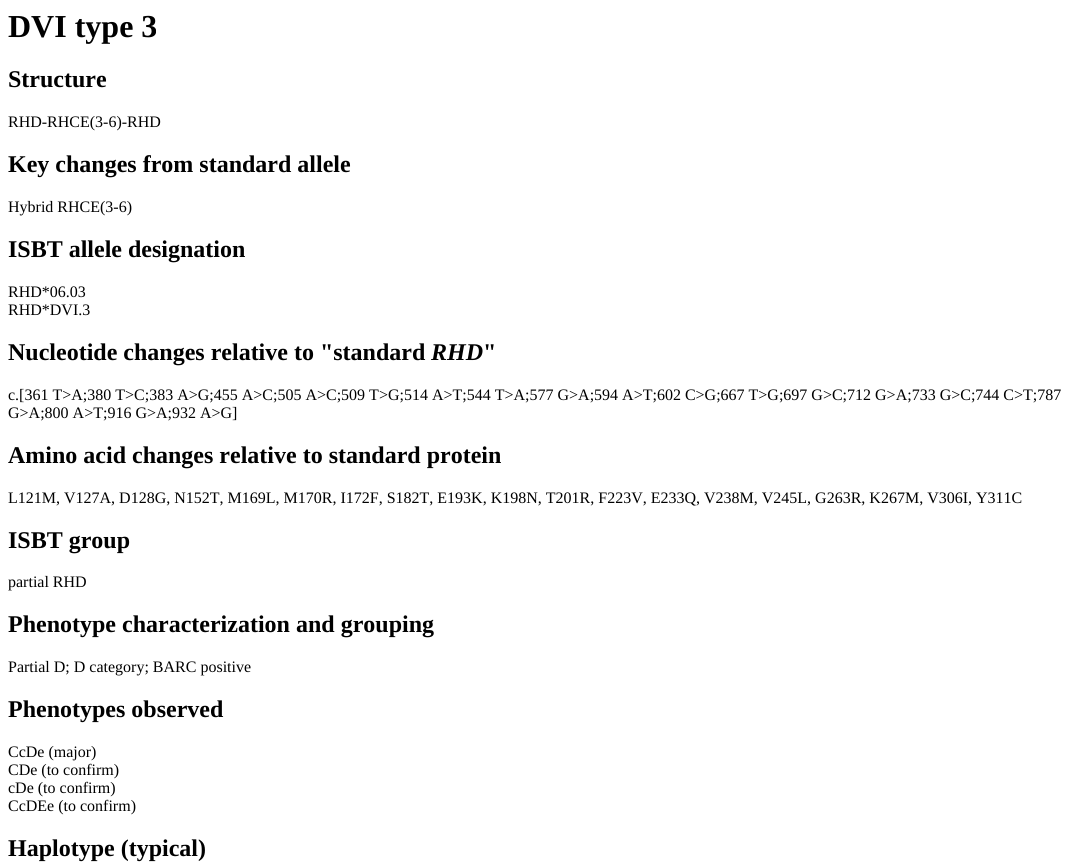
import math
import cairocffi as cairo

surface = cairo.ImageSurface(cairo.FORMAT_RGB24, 1071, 863)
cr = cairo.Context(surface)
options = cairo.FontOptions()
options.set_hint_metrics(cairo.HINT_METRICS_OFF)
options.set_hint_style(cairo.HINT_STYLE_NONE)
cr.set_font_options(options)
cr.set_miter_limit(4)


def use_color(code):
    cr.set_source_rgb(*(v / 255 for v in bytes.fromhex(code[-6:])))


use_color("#ffffff")
cr.paint()
cr.select_font_face("Liberation Serif", cairo.FONT_SLANT_NORMAL, cairo.FONT_WEIGHT_BOLD)
cr.set_font_size(32)
use_color("#000000")
cr.move_to(8, 37)
cr.show_text("DVI type 3")
cr.set_font_size(24)
cr.move_to(8, 87)
cr.show_text("Structure")
cr.select_font_face("Liberation Serif")
cr.set_font_size(16)
cr.move_to(8, 127)
cr.show_text("RHD-RHCE(3-6)-RHD")
cr.select_font_face("Liberation Serif", cairo.FONT_SLANT_NORMAL, cairo.FONT_WEIGHT_BOLD)
cr.set_font_size(24)
cr.move_to(8, 172)
cr.show_text("Key changes from standard allele")
cr.select_font_face("Liberation Serif")
cr.set_font_size(16)
cr.move_to(8, 212)
cr.show_text("Hybrid RHCE(3-6)")
cr.select_font_face("Liberation Serif", cairo.FONT_SLANT_NORMAL, cairo.FONT_WEIGHT_BOLD)
cr.set_font_size(24)
cr.move_to(8, 257)
cr.show_text("ISBT allele designation")
cr.select_font_face("Liberation Serif")
cr.set_font_size(16)
cr.move_to(8, 297)
cr.show_text("RHD*06.03")
cr.move_to(8, 315)
cr.show_text("RHD*DVI.3")
cr.select_font_face("Liberation Serif", cairo.FONT_SLANT_NORMAL, cairo.FONT_WEIGHT_BOLD)
cr.set_font_size(24)
cr.move_to(8, 360)
cr.show_text("Nucleotide changes relative to \"standard")
cr.select_font_face("Liberation Serif", cairo.FONT_SLANT_ITALIC, cairo.FONT_WEIGHT_BOLD)
cr.move_to(431, 360)
cr.show_text("RHD")
cr.select_font_face("Liberation Serif", cairo.FONT_SLANT_NORMAL, cairo.FONT_WEIGHT_BOLD)
cr.move_to(483, 360)
cr.show_text("\"")
cr.select_font_face("Liberation Serif")
cr.set_font_size(16)
cr.move_to(8, 400)
cr.show_text("c.[361 T>A;380 T>C;383 A>G;455 A>C;505 A>C;509 T>G;514 A>T;544 T>A;577 G>A;594 A>T;602 C>G;667 T>G;697 G>C;712 G>A;733 G>C;744 C>T;787")
cr.move_to(8, 418)
cr.show_text("G>A;800 A>T;916 G>A;932 A>G]")
cr.select_font_face("Liberation Serif", cairo.FONT_SLANT_NORMAL, cairo.FONT_WEIGHT_BOLD)
cr.set_font_size(24)
cr.move_to(8, 463)
cr.show_text("Amino acid changes relative to standard protein")
cr.select_font_face("Liberation Serif")
cr.set_font_size(16)
cr.move_to(8, 503)
cr.show_text("L121M, V127A, D128G, N152T, M169L, M170R, I172F, S182T, E193K, K198N, T201R, F223V, E233Q, V238M, V245L, G263R, K267M, V306I, Y311C")
cr.select_font_face("Liberation Serif", cairo.FONT_SLANT_NORMAL, cairo.FONT_WEIGHT_BOLD)
cr.set_font_size(24)
cr.move_to(8, 548)
cr.show_text("ISBT group")
cr.select_font_face("Liberation Serif")
cr.set_font_size(16)
cr.move_to(8, 587)
cr.show_text("partial RHD")
cr.select_font_face("Liberation Serif", cairo.FONT_SLANT_NORMAL, cairo.FONT_WEIGHT_BOLD)
cr.set_font_size(24)
cr.move_to(8, 632)
cr.show_text("Phenotype characterization and grouping")
cr.select_font_face("Liberation Serif")
cr.set_font_size(16)
cr.move_to(8, 672)
cr.show_text("Partial D; D category; BARC positive")
cr.select_font_face("Liberation Serif", cairo.FONT_SLANT_NORMAL, cairo.FONT_WEIGHT_BOLD)
cr.set_font_size(24)
cr.move_to(8, 717)
cr.show_text("Phenotypes observed")
cr.select_font_face("Liberation Serif")
cr.set_font_size(16)
cr.move_to(8, 757)
cr.show_text("CcDe (major)")
cr.move_to(8, 775)
cr.show_text("CDe (to confirm)")
cr.move_to(8, 793)
cr.show_text("cDe (to confirm)")
cr.move_to(8, 811)
cr.show_text("CcDEe (to confirm)")
cr.select_font_face("Liberation Serif", cairo.FONT_SLANT_NORMAL, cairo.FONT_WEIGHT_BOLD)
cr.set_font_size(24)
cr.move_to(8, 856)
cr.show_text("Haplotype (typical)")
surface.write_to_png("result.png")
